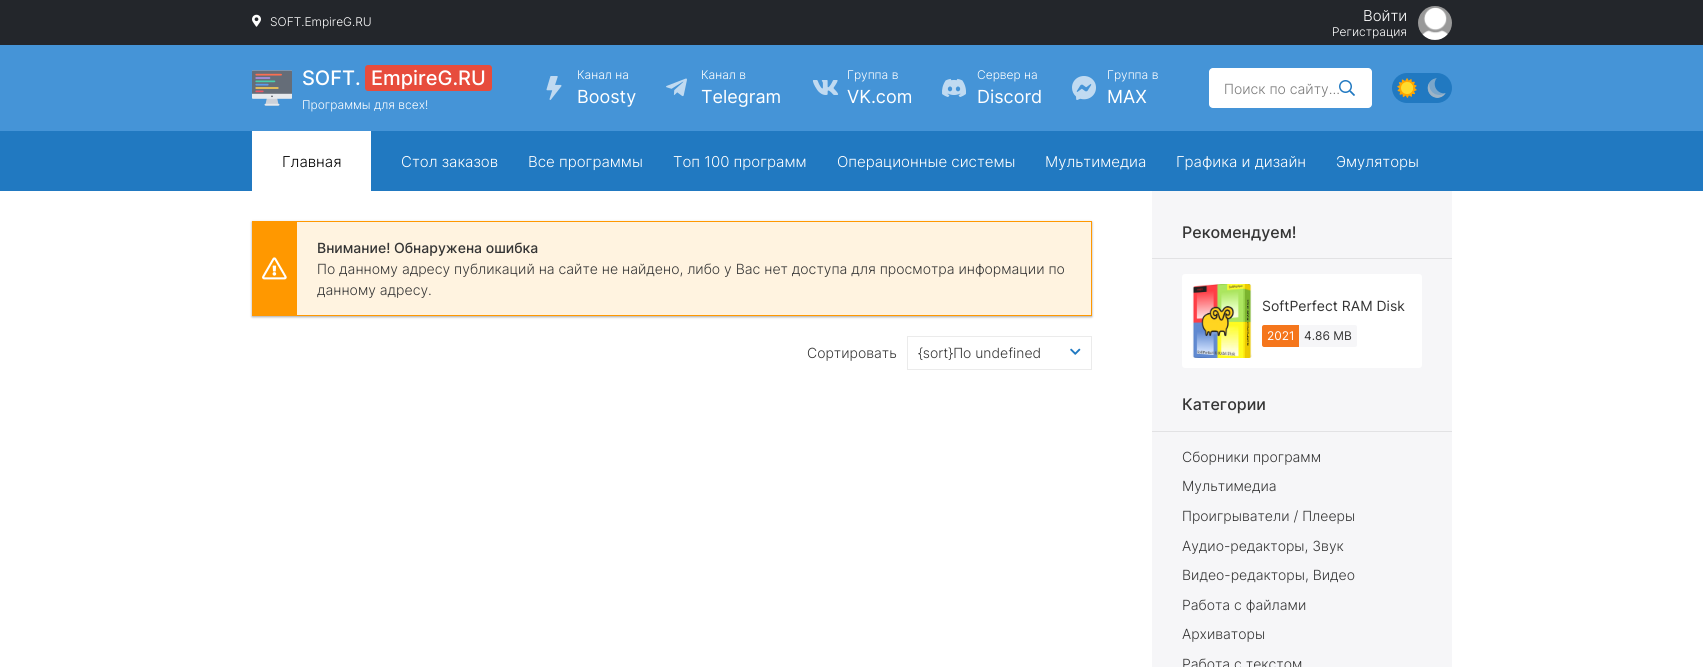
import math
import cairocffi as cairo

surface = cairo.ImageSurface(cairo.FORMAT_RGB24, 1703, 667)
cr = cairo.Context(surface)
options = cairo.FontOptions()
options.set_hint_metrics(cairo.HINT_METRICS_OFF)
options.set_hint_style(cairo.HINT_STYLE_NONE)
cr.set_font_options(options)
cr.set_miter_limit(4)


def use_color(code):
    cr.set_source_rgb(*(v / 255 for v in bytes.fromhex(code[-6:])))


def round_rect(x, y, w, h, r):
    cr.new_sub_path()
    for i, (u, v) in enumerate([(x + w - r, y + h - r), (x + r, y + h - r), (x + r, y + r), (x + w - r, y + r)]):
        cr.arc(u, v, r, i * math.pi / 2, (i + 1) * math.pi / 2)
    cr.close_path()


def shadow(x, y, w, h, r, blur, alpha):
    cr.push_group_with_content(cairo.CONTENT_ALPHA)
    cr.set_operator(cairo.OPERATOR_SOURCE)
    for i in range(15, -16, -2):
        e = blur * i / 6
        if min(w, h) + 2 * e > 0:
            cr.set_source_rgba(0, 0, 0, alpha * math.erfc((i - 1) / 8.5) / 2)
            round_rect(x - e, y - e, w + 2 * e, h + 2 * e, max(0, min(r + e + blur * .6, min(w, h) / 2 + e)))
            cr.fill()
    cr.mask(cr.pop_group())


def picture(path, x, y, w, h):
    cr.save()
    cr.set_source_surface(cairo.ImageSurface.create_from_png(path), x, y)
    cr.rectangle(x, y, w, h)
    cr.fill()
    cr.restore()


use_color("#ffffff")
cr.paint()
use_color("#23262b")
cr.rectangle(0, 0, 1703, 45)
cr.fill()
picture("img1.png", 252, 14, 9, 13)
cr.select_font_face("Inter Light")
cr.set_font_size(12)
use_color("#ffffff")
cr.move_to(270, 26)
cr.show_text("SOFT.EmpireG.RU")
cr.set_font_size(15)
cr.move_to(1363, 21)
cr.show_text("Войти")
picture("img2.png", 1418, 6, 34, 34)
cr.set_font_size(12)
cr.move_to(1332, 36)
cr.show_text("Регистрация")
use_color("#4594d7")
cr.rectangle(0, 45, 1703, 86)
cr.fill()
picture("img3.png", 252, 70, 40, 36)
cr.select_font_face("Inter Medium")
cr.set_font_size(20)
use_color("#ffffff")
cr.move_to(302, 85)
cr.show_text("SOFT.")
use_color("#e74c3c")
round_rect(365, 65, 127, 26, 3)
cr.fill()
use_color("#ffffff")
cr.move_to(371, 85)
cr.show_text("EmpireG.RU")
cr.select_font_face("Inter Light")
cr.set_font_size(12)
cr.move_to(302, 109)
cr.show_text("Программы для всех!")
cr.move_to(577, 79)
cr.show_text("Канал на")
picture("img4.png", 546, 76, 16, 24)
cr.select_font_face("Inter")
cr.set_font_size(18)
cr.move_to(577, 103)
cr.show_text("Boosty")
cr.select_font_face("Inter Light")
cr.set_font_size(12)
cr.move_to(701, 79)
cr.show_text("Канал в")
picture("img5.png", 666, 78, 21, 19)
cr.select_font_face("Inter")
cr.set_font_size(18)
cr.move_to(701, 103)
cr.show_text("Telegram")
cr.select_font_face("Inter Light")
cr.set_font_size(12)
cr.move_to(847, 79)
cr.show_text("Группа в")
picture("img6.png", 812, 80, 27, 15)
cr.select_font_face("Inter")
cr.set_font_size(18)
cr.move_to(847, 103)
cr.show_text("VK.com")
cr.select_font_face("Inter Light")
cr.set_font_size(12)
cr.move_to(977, 79)
cr.show_text("Сервер на")
picture("img7.png", 942, 78, 24, 19)
cr.select_font_face("Inter")
cr.set_font_size(18)
cr.move_to(977, 103)
cr.show_text("Discord")
picture("img8.png", 1072, 76, 24, 24)
cr.select_font_face("Inter Light")
cr.set_font_size(12)
cr.move_to(1107, 79)
cr.show_text("Группа в")
cr.select_font_face("Inter")
cr.set_font_size(18)
cr.move_to(1107, 103)
cr.show_text("MAX")
round_rect(1209, 68, 163, 40, 4)
cr.fill()
cr.select_font_face("Inter Light")
cr.set_font_size(14)
use_color("#797979")
cr.move_to(1224, 94)
cr.show_text("Поиск по сайту...")
picture("img9.png", 1339, 80, 16, 16)
use_color("#2179c1")
round_rect(1392, 73, 60, 30, 15)
cr.fill()
picture("img10.png", 1397, 78, 20, 20)
picture("img11.png", 1427, 78, 19, 20)
cr.rectangle(0, 131, 1703, 60)
cr.fill()
use_color("#ffffff")
cr.rectangle(252, 131, 119, 60)
cr.fill()
cr.set_font_size(15)
use_color("#000000")
cr.move_to(282, 167)
cr.show_text("Главная")
use_color("#ffffff")
cr.move_to(401, 167)
cr.show_text("Стол заказов")
cr.move_to(528, 167)
cr.show_text("Все программы")
cr.move_to(673, 167)
cr.show_text("Топ 100 программ")
cr.move_to(837, 167)
cr.show_text("Операционные системы")
cr.move_to(1045, 167)
cr.show_text("Мультимедиа")
cr.move_to(1176, 167)
cr.show_text("Графика и дизайн")
cr.move_to(1336, 167)
cr.show_text("Эмуляторы")
use_color("#000000")
shadow(252, 222, 840, 95, 0, 1, 0.24)
shadow(252, 222, 840, 95, 0, 1.5, 0.12)
use_color("#fff3e0")
cr.rectangle(297, 222, 794, 93)
cr.fill()
cr.rectangle(252.5, 221.5, 839, 94)
use_color("#ff9800")
cr.set_line_width(1)
cr.stroke()
cr.rectangle(253, 222, 44, 93)
cr.fill()
picture("img12.png", 262, 257, 25, 23)
cr.select_font_face("Inter Medium")
cr.set_font_size(14)
use_color("#353535")
cr.move_to(317, 253)
cr.show_text("Внимание! Обнаружена ошибка")
cr.select_font_face("Inter Light")
cr.move_to(317, 274)
cr.show_text("По данному адресу публикаций на сайте не найдено, либо у Вас нет доступа для просмотра информации по")
cr.move_to(317, 295)
cr.show_text("данному адресу.")
cr.move_to(807, 358)
cr.show_text("Сортировать")
cr.rectangle(907.5, 336.5, 184, 33)
use_color("#ebebeb")
cr.stroke()
use_color("#353535")
cr.move_to(918, 358)
cr.show_text("{sort}По undefined")
picture("img13.png", 1070, 348, 11, 7)
use_color("#f6f6f8")
cr.rectangle(1152, 191, 300, 476)
cr.fill()
use_color("#e2e2e4")
cr.rectangle(1152, 258, 300, 1)
cr.fill()
cr.select_font_face("Inter Medium")
cr.set_font_size(16)
use_color("#353535")
cr.move_to(1182, 238)
cr.show_text("Рекомендуем!")
use_color("#ffffff")
round_rect(1182, 274, 240, 94, 3)
cr.fill()
picture("img14.png", 1192, 284, 60, 74)
cr.select_font_face("Inter")
cr.set_font_size(14)
use_color("#353535")
cr.move_to(1262, 311)
cr.show_text("SoftPerfect RAM Disk")
use_color("#f6f6f8")
round_rect(1262, 325, 95, 22, 2)
cr.fill()
use_color("#f5761c")
cr.new_path()
cr.move_to(1264, 325)
cr.line_to(1299, 325)
cr.line_to(1299, 347)
cr.line_to(1264, 347)
cr.curve_to(1263, 347, 1262, 346, 1262, 345)
cr.line_to(1262, 327)
cr.curve_to(1262, 326, 1263, 325, 1264, 325)
cr.close_path()
cr.fill()
cr.set_font_size(12)
use_color("#ffffff")
cr.move_to(1267, 340)
cr.show_text("2021")
use_color("#353535")
cr.move_to(1304, 340)
cr.show_text("4.86 MB")
use_color("#e2e2e4")
cr.rectangle(1152, 431, 300, 1)
cr.fill()
cr.select_font_face("Inter Medium")
cr.set_font_size(16)
use_color("#353535")
cr.move_to(1182, 410)
cr.show_text("Категории")
cr.select_font_face("Inter Light")
cr.set_font_size(14)
cr.move_to(1182, 462)
cr.show_text("Сборники программ")
cr.move_to(1182, 491)
cr.show_text("Мультимедиа")
cr.move_to(1182, 521)
cr.show_text("Проигрыватели / Плееры")
cr.move_to(1182, 551)
cr.show_text("Аудио-редакторы, Звук")
cr.move_to(1182, 580)
cr.show_text("Видео-редакторы, Видео")
cr.move_to(1182, 610)
cr.show_text("Работа с файлами")
cr.move_to(1182, 639)
cr.show_text("Архиваторы")
cr.move_to(1182, 669)
cr.show_text("Работа с текстом")
surface.write_to_png("result.png")
